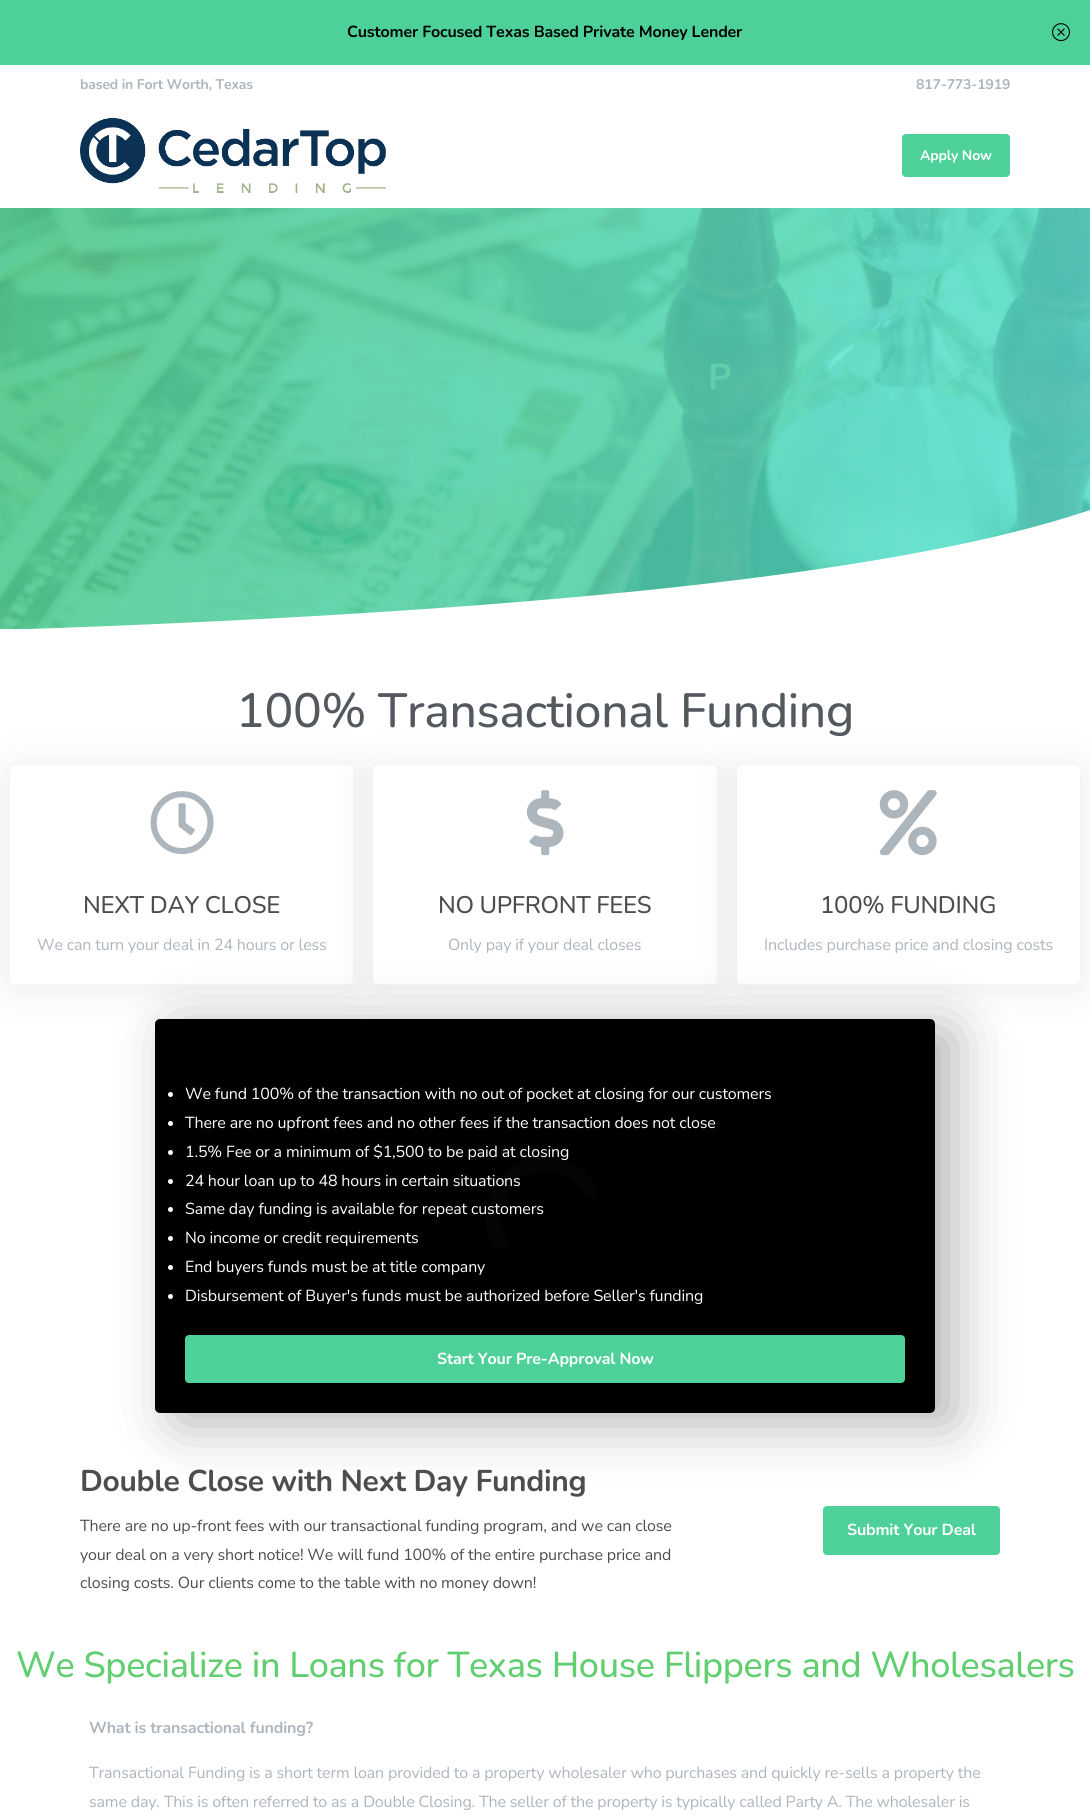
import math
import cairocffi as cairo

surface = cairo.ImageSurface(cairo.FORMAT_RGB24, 1090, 1817)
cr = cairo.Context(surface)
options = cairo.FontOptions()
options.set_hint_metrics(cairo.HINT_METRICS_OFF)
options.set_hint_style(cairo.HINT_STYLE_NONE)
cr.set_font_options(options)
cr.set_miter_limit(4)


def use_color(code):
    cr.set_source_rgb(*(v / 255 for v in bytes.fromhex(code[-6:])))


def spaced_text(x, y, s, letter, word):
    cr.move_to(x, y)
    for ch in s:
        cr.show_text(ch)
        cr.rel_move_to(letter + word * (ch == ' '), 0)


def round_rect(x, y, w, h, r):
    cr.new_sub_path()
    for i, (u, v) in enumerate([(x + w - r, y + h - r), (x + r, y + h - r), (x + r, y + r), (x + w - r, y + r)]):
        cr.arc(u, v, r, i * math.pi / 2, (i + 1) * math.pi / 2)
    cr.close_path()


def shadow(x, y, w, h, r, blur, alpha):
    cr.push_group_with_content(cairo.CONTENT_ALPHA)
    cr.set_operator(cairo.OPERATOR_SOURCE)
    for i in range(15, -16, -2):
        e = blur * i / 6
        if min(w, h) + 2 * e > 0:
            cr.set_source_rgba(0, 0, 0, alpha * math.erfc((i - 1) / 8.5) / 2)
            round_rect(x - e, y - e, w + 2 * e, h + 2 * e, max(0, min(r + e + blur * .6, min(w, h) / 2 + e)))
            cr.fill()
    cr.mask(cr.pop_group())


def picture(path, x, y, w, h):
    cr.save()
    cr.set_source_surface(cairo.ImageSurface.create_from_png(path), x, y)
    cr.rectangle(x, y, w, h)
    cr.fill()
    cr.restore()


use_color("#ffffff")
cr.paint()
use_color("#4ed199")
cr.rectangle(0, 0, 1090, 65)
cr.fill()
cr.select_font_face("Nunito", cairo.FONT_SLANT_NORMAL, cairo.FONT_WEIGHT_BOLD)
cr.set_font_size(16)
use_color("#000000")
spaced_text(347, 37, "Customer Focused Texas Based Private Money Lender", -0.16, 0)
picture("img1.png", 1052, 23, 18, 19)
cr.set_font_size(14)
use_color("#adb5bd")
spaced_text(80, 89, "based in Fort Worth, Texas", -0.16, 0)
spaced_text(916, 89, "817-773-1919", -0.16, 0)
picture("img2.png", 80, 117, 306, 76)
use_color("#4ed199")
round_rect(902, 134, 108, 43, 4)
cr.fill()
use_color("#ffffff")
spaced_text(920, 160, "Apply Now", -0.16, 0)
gradient = cairo.LinearGradient(0, 909, 1090, 909)
gradient.add_color_stop_rgba(0, 0.306, 0.82, 0.6, 1)
gradient.add_color_stop_rgba(1, 0.337, 0.918, 0.851, 1)
cr.set_source(gradient)
cr.rectangle(0, 208, 1090, 421)
cr.fill()
picture("img3.png", 0, 208, 1090, 421)
cr.set_font_size(36)
use_color("#5fcfac")
spaced_text(708, 389, "P", -0.32, 0)
use_color("#ffffff")
cr.new_path()
cr.move_to(0, 630)
cr.curve_to(545, 612, 908, 572, 1090, 510)
cr.line_to(1090, 630)
cr.close_path()
cr.fill()
cr.select_font_face("Nunito Medium")
cr.set_font_size(48)
use_color("#54595f")
spaced_text(236, 727, "100% Transactional Funding", -0.32, 0)
use_color("#242424")
shadow(10, 768, 343, 219, 5, 20, 0.1)
use_color("#ffffff")
round_rect(10, 765, 343, 219, 5)
cr.fill()
picture("img4.png", 150, 791, 64, 64)
cr.set_font_size(24)
use_color("#4d4d4d")
spaced_text(83, 913, "NEXT DAY CLOSE", -0.32, 0)
cr.select_font_face("Nunito")
cr.set_font_size(16)
use_color("#adb5bd")
spaced_text(37, 950, "We can turn your deal in 24 hours or less", -0.16, 0)
use_color("#242424")
shadow(373, 768, 344, 219, 5, 20, 0.1)
use_color("#ffffff")
round_rect(373, 765, 344, 219, 5)
cr.fill()
picture("img5.png", 526, 790, 38, 66)
cr.select_font_face("Nunito Medium")
cr.set_font_size(24)
use_color("#4d4d4d")
spaced_text(438, 913, "NO UPFRONT FEES", -0.32, 0)
cr.select_font_face("Nunito")
cr.set_font_size(16)
use_color("#adb5bd")
spaced_text(448, 950, "Only pay if your deal closes", -0.16, 0)
use_color("#242424")
shadow(737, 768, 343, 219, 5, 20, 0.1)
use_color("#ffffff")
round_rect(737, 765, 343, 219, 5)
cr.fill()
picture("img6.png", 879, 790, 58, 66)
cr.select_font_face("Nunito Medium")
cr.set_font_size(24)
use_color("#4d4d4d")
spaced_text(820, 913, "100% FUNDING", -0.32, 0)
cr.select_font_face("Nunito")
cr.set_font_size(16)
use_color("#adb5bd")
spaced_text(764, 950, "Includes purchase price and closing costs", -0.16, 0)
use_color("#000000")
shadow(175, 1029, 780, 394, 5, 29, 0.3)
use_color("#000000")
round_rect(155, 1019, 780, 394, 5)
cr.fill()
use_color("#ffffff")
cr.arc(170.5, 1094.5, 2.5, 0, 2 * math.pi)
cr.fill()
spaced_text(185, 1099, "We fund 100% of the transaction with no out of pocket at closing for our customers", -0.16, 0)
cr.new_path()
cr.arc(170.5, 1123.5, 2.5, 0, 2 * math.pi)
cr.fill()
spaced_text(185, 1128, "There are no upfront fees and no other fees if the transaction does not close", -0.16, 0)
cr.new_path()
cr.arc(170.5, 1152.5, 2.5, 0, 2 * math.pi)
cr.fill()
picture("img7.png", 486, 1157, 110, 92)
spaced_text(185, 1157, "1.5% Fee or a minimum of $1,500 to be paid at closing", -0.16, 0)
cr.new_path()
cr.arc(170.5, 1181.5, 2.5, 0, 2 * math.pi)
cr.fill()
spaced_text(185, 1186, "24 hour loan up to 48 hours in certain situations", -0.16, 0)
cr.new_path()
cr.arc(170.5, 1209.5, 2.5, 0, 2 * math.pi)
cr.fill()
spaced_text(185, 1214, "Same day funding is available for repeat customers", -0.16, 0)
cr.new_path()
cr.arc(170.5, 1238.5, 2.5, 0, 2 * math.pi)
cr.fill()
spaced_text(185, 1243, "No income or credit requirements", -0.16, 0)
cr.new_path()
cr.arc(170.5, 1267.5, 2.5, 0, 2 * math.pi)
cr.fill()
spaced_text(185, 1272, "End buyers funds must be at title company", -0.16, 0)
cr.new_path()
cr.arc(170.5, 1296.5, 2.5, 0, 2 * math.pi)
cr.fill()
spaced_text(185, 1301, "Disbursement of Buyer's funds must be authorized before Seller's funding", -0.16, 0)
use_color("#4ed199")
round_rect(185, 1335, 720, 48, 4)
cr.fill()
cr.select_font_face("Nunito", cairo.FONT_SLANT_NORMAL, cairo.FONT_WEIGHT_BOLD)
use_color("#ffffff")
spaced_text(437, 1364, "Start Your Pre-Approval Now", -0.16, 0)
cr.set_font_size(30)
use_color("#4d4d4d")
spaced_text(80, 1491, "Double Close with Next Day Funding", -0.32, 0)
cr.select_font_face("Nunito")
cr.set_font_size(16)
spaced_text(80, 1531, "There are no up-front fees with our transactional funding program, and we can close", -0.16, 0)
spaced_text(80, 1560, "your deal on a very short notice! We will fund 100% of the entire purchase price and", -0.16, 0)
spaced_text(80, 1588, "closing costs. Our clients come to the table with no money down!", -0.16, 0)
use_color("#4ed199")
round_rect(823, 1506, 177, 49, 4)
cr.fill()
cr.select_font_face("Nunito", cairo.FONT_SLANT_NORMAL, cairo.FONT_WEIGHT_BOLD)
use_color("#ffffff")
spaced_text(847, 1535, "Submit Your Deal", -0.16, 0)
cr.select_font_face("Nunito Medium")
cr.set_font_size(36)
use_color("#61ce70")
spaced_text(16, 1677, "We Specialize in Loans for Texas House Flippers and Wholesalers", -0.32, 0)
cr.select_font_face("Nunito", cairo.FONT_SLANT_NORMAL, cairo.FONT_WEIGHT_BOLD)
cr.set_font_size(16)
use_color("#adb5bd")
spaced_text(89, 1733, "What is transactional funding?", -0.16, 0)
cr.select_font_face("Nunito")
spaced_text(89, 1778, "Transactional Funding is a short term loan provided to a property wholesaler who purchases and quickly re-sells a property the", -0.16, 0)
spaced_text(89, 1807, "same day. This is often referred to as a Double Closing. The seller of the property is typically called Party A. The wholesaler is", -0.16, 0)
surface.write_to_png("result.png")
